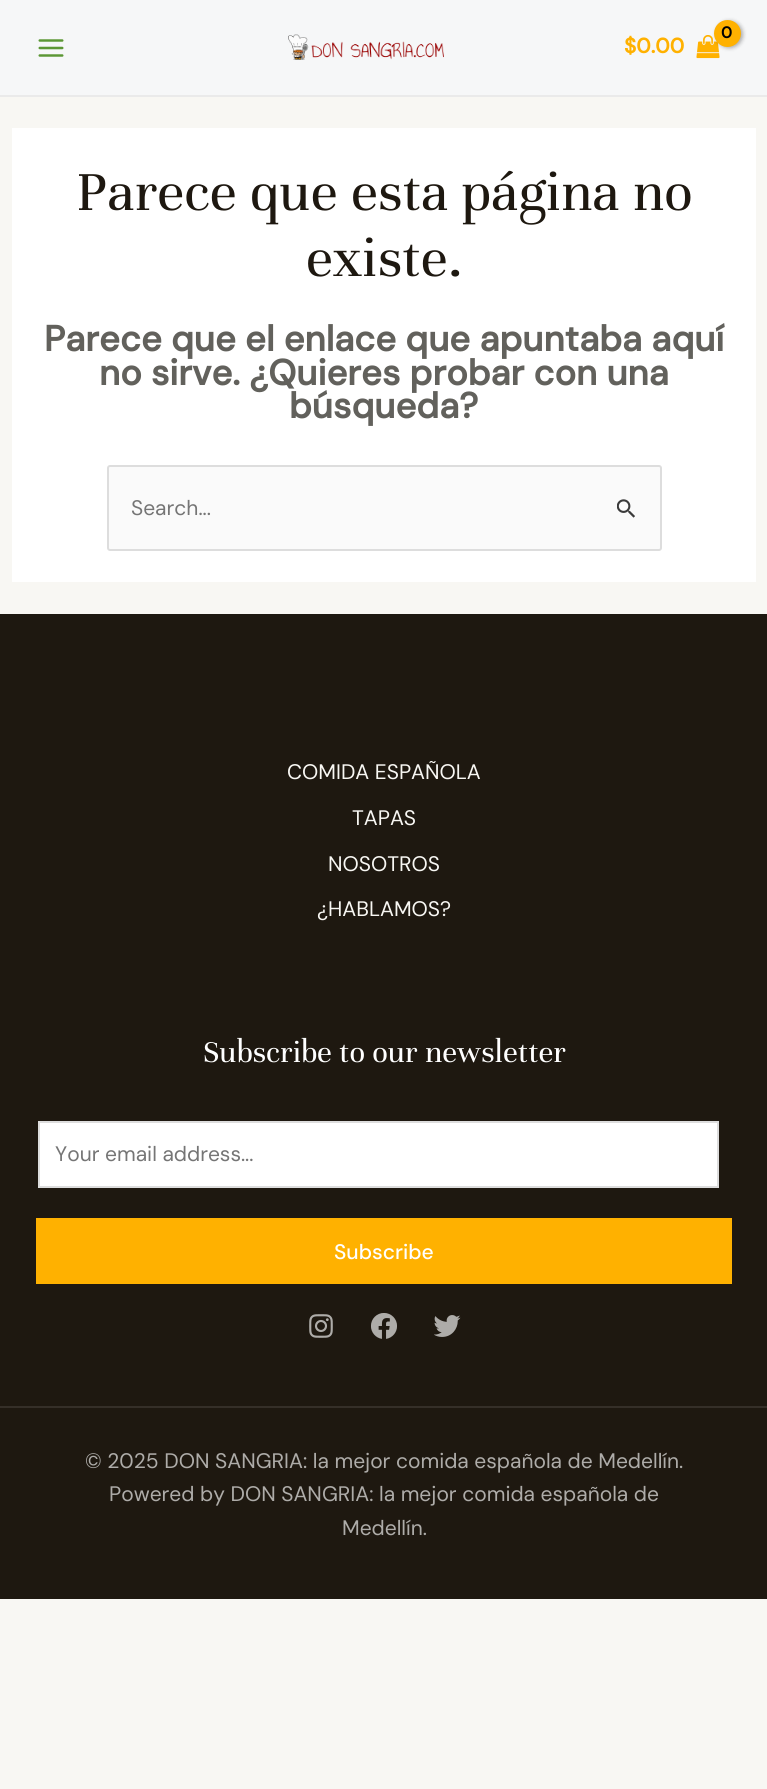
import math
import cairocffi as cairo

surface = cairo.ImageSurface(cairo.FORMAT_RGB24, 767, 1789)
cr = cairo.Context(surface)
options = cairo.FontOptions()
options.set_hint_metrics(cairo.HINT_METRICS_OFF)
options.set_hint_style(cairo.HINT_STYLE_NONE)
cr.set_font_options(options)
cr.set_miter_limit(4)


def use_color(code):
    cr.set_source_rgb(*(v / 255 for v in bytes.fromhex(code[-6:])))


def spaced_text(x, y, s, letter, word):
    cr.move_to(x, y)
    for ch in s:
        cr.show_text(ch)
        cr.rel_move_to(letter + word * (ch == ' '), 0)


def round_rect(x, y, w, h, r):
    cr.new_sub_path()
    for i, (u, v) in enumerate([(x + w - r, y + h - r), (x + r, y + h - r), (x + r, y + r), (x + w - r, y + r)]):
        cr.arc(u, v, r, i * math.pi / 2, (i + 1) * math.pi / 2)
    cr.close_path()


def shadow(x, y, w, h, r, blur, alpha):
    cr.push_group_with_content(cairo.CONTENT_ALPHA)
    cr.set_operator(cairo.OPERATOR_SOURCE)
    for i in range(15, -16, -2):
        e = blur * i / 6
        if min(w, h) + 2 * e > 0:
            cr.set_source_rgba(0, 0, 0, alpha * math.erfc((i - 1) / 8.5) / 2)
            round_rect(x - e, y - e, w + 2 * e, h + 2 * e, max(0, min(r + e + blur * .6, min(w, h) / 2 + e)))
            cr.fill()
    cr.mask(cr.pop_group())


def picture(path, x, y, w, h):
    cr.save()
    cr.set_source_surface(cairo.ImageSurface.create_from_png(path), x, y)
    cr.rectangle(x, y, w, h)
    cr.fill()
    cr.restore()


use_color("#f8f7f3")
cr.paint()
use_color("#f6f7f8")
cr.rectangle(0, 0, 767, 95)
cr.fill()
use_color("#eaeaea")
cr.rectangle(0, 95, 767, 2)
cr.fill()
picture("img1.png", 38, 39, 26, 18)
picture("img2.png", 288, 34, 156, 26)
picture("img3.png", 696, 35, 24, 24)
use_color("#000000")
shadow(716, 21, 27, 27, 13.5, 2, 0.3)
use_color("#ffb100")
cr.arc(727.5, 33.5, 13.5, 0, 2 * math.pi)
cr.fill()
cr.select_font_face("DM Sans", cairo.FONT_SLANT_NORMAL, cairo.FONT_WEIGHT_BOLD)
cr.set_font_size(16)
use_color("#000000")
spaced_text(721, 38, "0", -1, 0)
cr.set_font_size(21)
use_color("#ffb100")
cr.move_to(624, 53)
cr.show_text("$0.00")
use_color("#ffffff")
cr.rectangle(12, 128, 744, 454)
cr.fill()
cr.select_font_face("Unna")
cr.set_font_size(60)
use_color("#1e1810")
cr.move_to(76, 210)
cr.show_text("Parece que esta página no")
cr.move_to(306, 276)
cr.show_text("existe.")
cr.select_font_face("DM Sans", cairo.FONT_SLANT_NORMAL, cairo.FONT_WEIGHT_BOLD)
cr.set_font_size(36)
use_color("#62615c")
cr.move_to(44, 351)
cr.show_text("Parece que el enlace que apuntaba aquí")
cr.move_to(99, 385)
cr.show_text("no sirve. ¿Quieres probar con una")
cr.move_to(289, 418)
cr.show_text("búsqueda?")
use_color("#fafafa")
round_rect(108, 466, 553, 84, 2)
cr.fill_preserve()
use_color("#dddddd")
cr.stroke()
cr.select_font_face("DM Sans")
cr.set_font_size(21)
use_color("#757575")
cr.move_to(131, 515)
cr.show_text("Search...")
picture("img4.png", 617, 499, 18, 19)
use_color("#1e1810")
cr.rectangle(0, 614, 767, 985)
cr.fill()
use_color("#f8f7f3")
cr.move_to(287, 779)
cr.show_text("COMIDA ESPAÑOLA")
cr.move_to(352, 825)
cr.show_text("TAPAS")
cr.move_to(328, 871)
cr.show_text("NOSOTROS")
cr.move_to(317, 916)
cr.show_text("¿HABLAMOS?")
cr.select_font_face("Unna")
cr.set_font_size(33)
use_color("#ffffff")
cr.move_to(203, 1062)
cr.show_text("Subscribe to our newsletter")
cr.rectangle(39, 1122, 679, 65)
cr.fill_preserve()
use_color("#dddddd")
cr.stroke()
cr.select_font_face("DM Sans")
cr.set_font_size(21)
use_color("#757575")
cr.move_to(55, 1161)
cr.show_text("Your email address...")
use_color("#ffb100")
cr.rectangle(36, 1218, 696, 66)
cr.fill()
cr.select_font_face("DM Sans Medium")
use_color("#ffffff")
cr.move_to(334, 1259)
cr.show_text("Subscribe")
picture("img5.png", 309, 1314, 24, 24)
picture("img6.png", 371, 1313, 26, 26)
picture("img7.png", 434, 1315, 27, 22)
use_color("#352f28")
cr.rectangle(0, 1406, 767, 2)
cr.fill()
cr.select_font_face("DM Sans")
use_color("#aeaca9")
cr.move_to(85, 1468)
cr.show_text("© 2025 DON SANGRIA: la mejor comida española de Medellín.")
cr.move_to(109, 1501)
cr.show_text("Powered by DON SANGRIA: la mejor comida española de")
cr.move_to(342, 1535)
cr.show_text("Medellín.")
surface.write_to_png("result.png")
